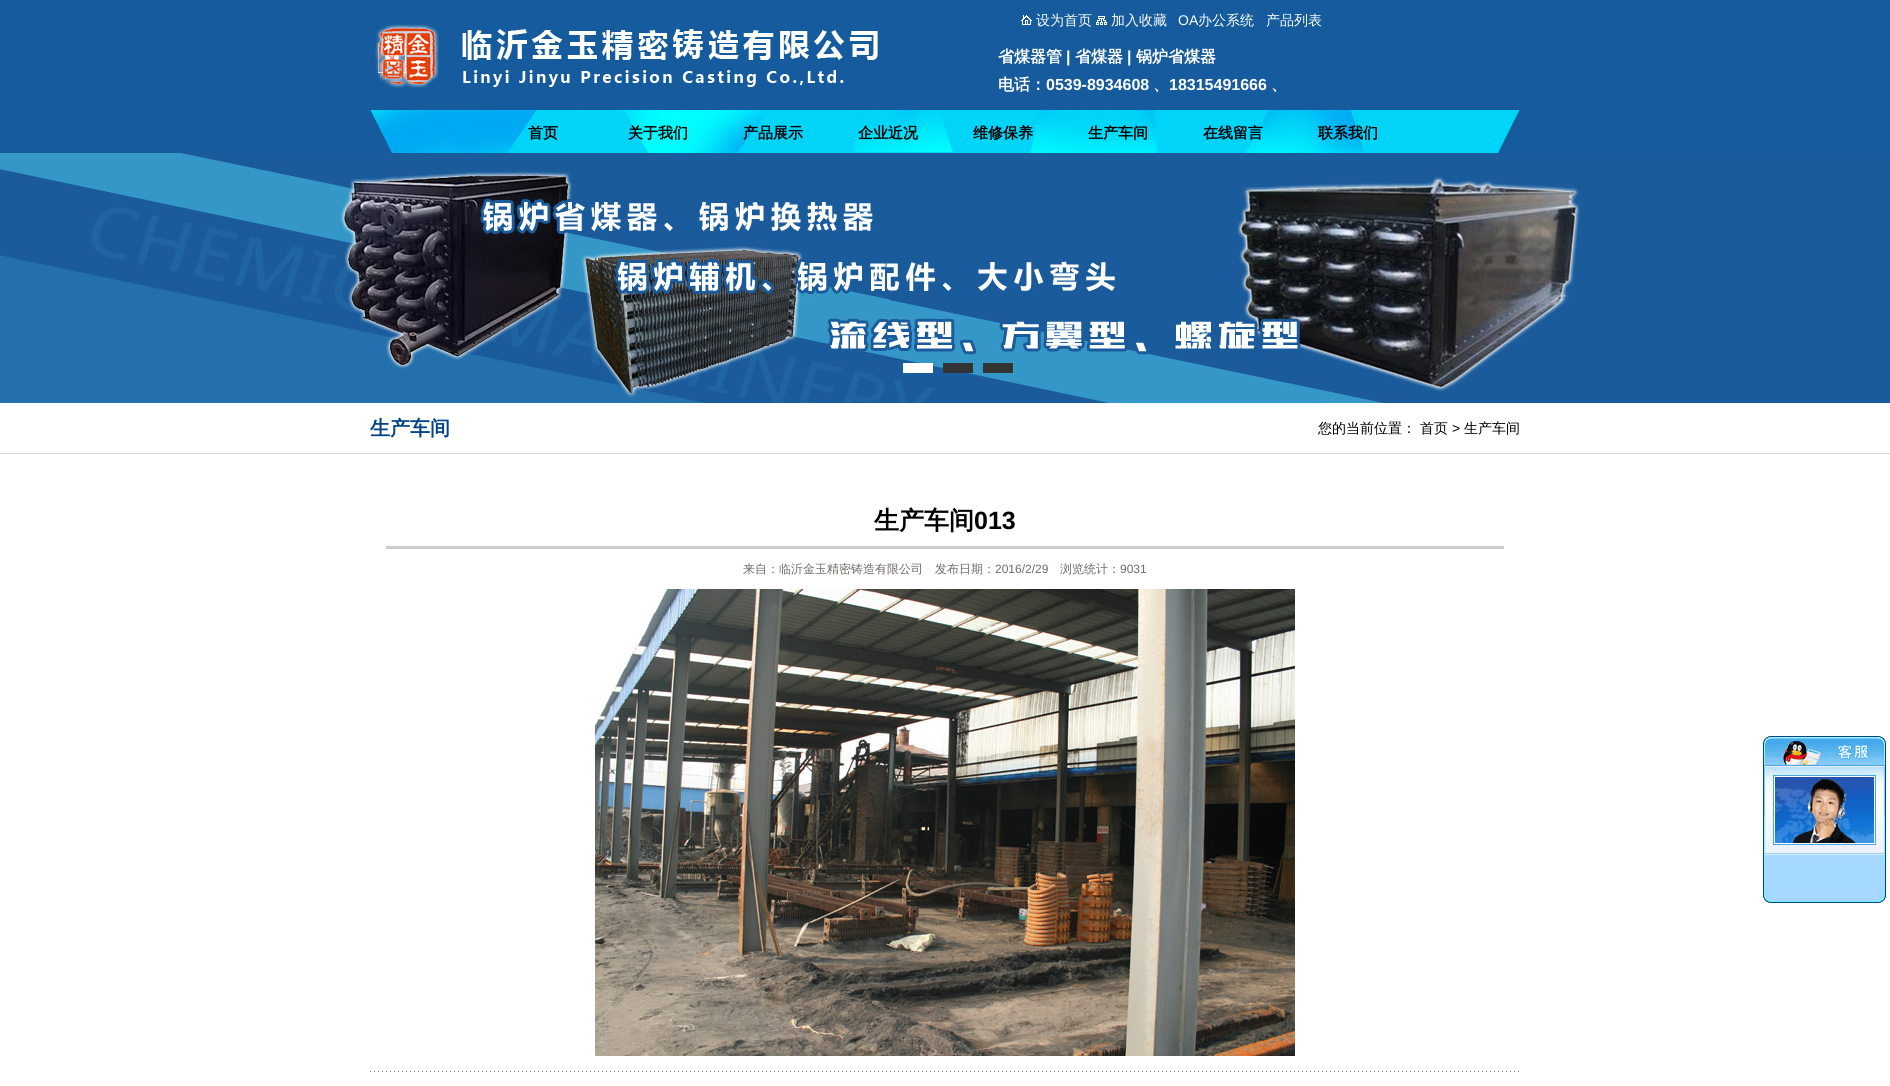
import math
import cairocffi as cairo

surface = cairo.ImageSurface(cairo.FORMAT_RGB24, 1890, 1086)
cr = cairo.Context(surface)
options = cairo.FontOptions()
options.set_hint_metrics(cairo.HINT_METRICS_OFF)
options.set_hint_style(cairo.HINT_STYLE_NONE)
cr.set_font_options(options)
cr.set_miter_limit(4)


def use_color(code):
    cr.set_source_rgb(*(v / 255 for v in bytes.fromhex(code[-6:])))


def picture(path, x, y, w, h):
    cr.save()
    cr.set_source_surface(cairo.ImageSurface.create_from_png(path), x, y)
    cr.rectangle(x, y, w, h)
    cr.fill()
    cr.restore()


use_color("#ffffff")
cr.paint()
use_color("#155b9d")
cr.rectangle(0, 0, 1890, 153)
cr.fill()
picture("img1.png", 375, 24, 503, 64)
picture("img2.png", 1021, 15, 11, 10)
cr.select_font_face("WenQuanYi Zen Hei Medium")
cr.set_font_size(14)
use_color("#ffffff")
cr.move_to(1036, 25)
cr.show_text("设为首页")
picture("img3.png", 1096, 16, 11, 9)
cr.move_to(1111, 25)
cr.show_text("加入收藏")
cr.select_font_face("Liberation Sans")
cr.move_to(1178, 25)
cr.show_text("OA")
cr.select_font_face("WenQuanYi Zen Hei Medium")
cr.move_to(1198, 25)
cr.show_text("办公系统")
cr.move_to(1266, 25)
cr.show_text("产品列表")
cr.select_font_face("WenQuanYi Zen Hei", cairo.FONT_SLANT_NORMAL, cairo.FONT_WEIGHT_BOLD)
cr.set_font_size(16)
cr.move_to(998, 62)
cr.show_text("省煤器管")
cr.select_font_face("Liberation Sans", cairo.FONT_SLANT_NORMAL, cairo.FONT_WEIGHT_BOLD)
cr.move_to(1066, 62)
cr.show_text("|")
cr.select_font_face("WenQuanYi Zen Hei", cairo.FONT_SLANT_NORMAL, cairo.FONT_WEIGHT_BOLD)
cr.move_to(1075, 62)
cr.show_text("省煤器")
cr.select_font_face("Liberation Sans", cairo.FONT_SLANT_NORMAL, cairo.FONT_WEIGHT_BOLD)
cr.move_to(1127, 62)
cr.show_text("|")
cr.select_font_face("WenQuanYi Zen Hei", cairo.FONT_SLANT_NORMAL, cairo.FONT_WEIGHT_BOLD)
cr.move_to(1136, 62)
cr.show_text("锅炉省煤器")
cr.move_to(998, 90)
cr.show_text("电话：")
cr.select_font_face("Liberation Sans", cairo.FONT_SLANT_NORMAL, cairo.FONT_WEIGHT_BOLD)
cr.move_to(1046, 90)
cr.show_text("0539-8934608")
cr.select_font_face("WenQuanYi Zen Hei", cairo.FONT_SLANT_NORMAL, cairo.FONT_WEIGHT_BOLD)
cr.move_to(1153, 90)
cr.show_text("、")
cr.select_font_face("Liberation Sans", cairo.FONT_SLANT_NORMAL, cairo.FONT_WEIGHT_BOLD)
cr.move_to(1169, 90)
cr.show_text("18315491666")
cr.select_font_face("WenQuanYi Zen Hei", cairo.FONT_SLANT_NORMAL, cairo.FONT_WEIGHT_BOLD)
cr.move_to(1271, 90)
cr.show_text("、")
picture("img4.png", 370, 110, 1150, 43)
cr.set_font_size(15)
use_color("#000000")
cr.move_to(528, 138)
cr.show_text("首页")
cr.move_to(628, 138)
cr.show_text("关于我们")
cr.move_to(743, 138)
cr.show_text("产品展示")
cr.move_to(858, 138)
cr.show_text("企业近况")
cr.move_to(973, 138)
cr.show_text("维修保养")
cr.move_to(1088, 138)
cr.show_text("生产车间")
cr.move_to(1203, 138)
cr.show_text("在线留言")
cr.move_to(1318, 138)
cr.show_text("联系我们")
picture("img5.png", 0, 153, 1890, 250)
use_color("#ffffff")
cr.rectangle(903, 363, 30, 10)
cr.fill()
use_color("#333333")
cr.rectangle(943, 363, 30, 10)
cr.fill()
cr.rectangle(983, 363, 30, 10)
cr.fill()
cr.set_font_size(20)
use_color("#004384")
cr.move_to(370, 435)
cr.show_text("生产车间")
cr.select_font_face("WenQuanYi Zen Hei Medium")
cr.set_font_size(14)
use_color("#000000")
cr.move_to(1318, 433)
cr.show_text("您的当前位置：")
cr.move_to(1420, 433)
cr.show_text("首页")
cr.select_font_face("Liberation Sans")
cr.move_to(1452, 433)
cr.show_text(">")
cr.select_font_face("WenQuanYi Zen Hei Medium")
cr.move_to(1464, 433)
cr.show_text("生产车间")
use_color("#d5d5d5")
cr.rectangle(0, 453, 1890, 1)
cr.fill()
cr.select_font_face("WenQuanYi Zen Hei", cairo.FONT_SLANT_NORMAL, cairo.FONT_WEIGHT_BOLD)
cr.set_font_size(25)
use_color("#000000")
cr.move_to(874, 529)
cr.show_text("生产车间")
cr.select_font_face("Liberation Sans", cairo.FONT_SLANT_NORMAL, cairo.FONT_WEIGHT_BOLD)
cr.move_to(974, 529)
cr.show_text("013")
use_color("#cccccc")
cr.rectangle(386, 546, 1118, 3)
cr.fill()
cr.select_font_face("WenQuanYi Zen Hei Medium")
cr.set_font_size(12)
use_color("#716964")
cr.move_to(743, 573)
cr.show_text("来自：临沂金玉精密铸造有限公司　发布日期：")
cr.select_font_face("Liberation Sans")
cr.move_to(995, 573)
cr.show_text("2016/2/29")
cr.select_font_face("WenQuanYi Zen Hei Medium")
cr.move_to(1060, 573)
cr.show_text("浏览统计：")
cr.select_font_face("Liberation Sans")
cr.move_to(1120, 573)
cr.show_text("9031")
picture("img6.png", 595, 589, 700, 467)
picture("img7.png", 370, 1071, 1149, 1)
picture("img8.png", 1763, 736, 123, 125)
picture("img9.png", 1763, 861, 123, 30)
picture("img10.png", 1763, 891, 123, 12)
surface.write_to_png("result.png")
